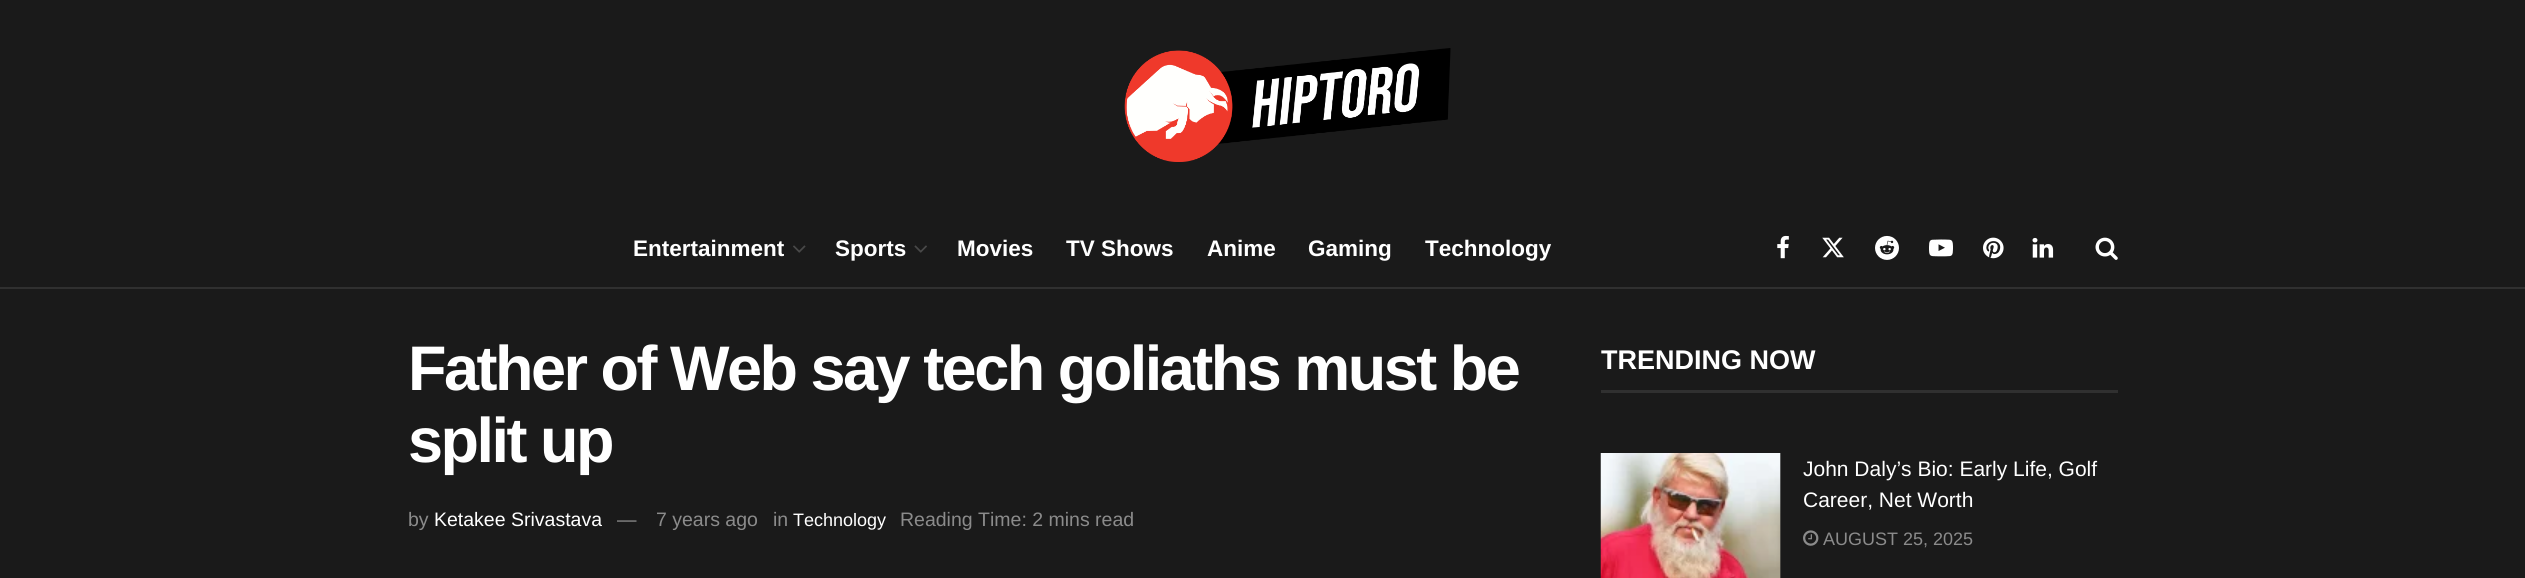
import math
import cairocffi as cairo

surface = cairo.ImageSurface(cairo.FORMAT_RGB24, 2525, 578)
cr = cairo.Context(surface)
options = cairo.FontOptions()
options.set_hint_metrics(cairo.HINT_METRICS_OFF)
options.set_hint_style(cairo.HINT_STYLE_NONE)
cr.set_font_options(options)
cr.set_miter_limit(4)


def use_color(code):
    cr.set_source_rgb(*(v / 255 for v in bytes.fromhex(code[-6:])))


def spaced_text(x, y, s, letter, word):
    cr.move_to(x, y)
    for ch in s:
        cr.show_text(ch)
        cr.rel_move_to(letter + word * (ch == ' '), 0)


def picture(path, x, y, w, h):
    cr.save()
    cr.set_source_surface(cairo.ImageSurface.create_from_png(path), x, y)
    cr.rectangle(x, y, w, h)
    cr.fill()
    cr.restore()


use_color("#1a1a1a")
cr.paint()
picture("img1.png", 1124, 48, 327, 114)
use_color("#303030")
cr.rectangle(0, 287, 2525, 2)
cr.fill()
cr.select_font_face("Liberation Sans", cairo.FONT_SLANT_NORMAL, cairo.FONT_WEIGHT_BOLD)
cr.set_font_size(22.5)
use_color("#ffffff")
cr.move_to(633, 256)
cr.show_text("Entertainment")
picture("img2.png", 793, 245, 13, 8)
cr.move_to(835, 256)
cr.show_text("Sports")
picture("img3.png", 914, 245, 13, 8)
cr.move_to(957, 256)
cr.show_text("Movies")
cr.move_to(1066, 256)
cr.show_text("TV Shows")
cr.move_to(1207, 256)
cr.show_text("Anime")
cr.move_to(1308, 256)
cr.show_text("Gaming")
cr.move_to(1425, 256)
cr.show_text("Technology")
picture("img4.png", 1777, 235, 12, 24)
picture("img5.png", 1822, 237, 22, 21)
picture("img6.png", 1875, 235, 24, 25)
picture("img7.png", 1929, 239, 24, 18)
picture("img8.png", 1983, 237, 21, 22)
picture("img9.png", 2032, 237, 22, 21)
picture("img10.png", 2095, 237, 23, 23)
cr.set_font_size(63)
spaced_text(408, 390, "Father of Web say tech goliaths must be", -2.5, 0)
spaced_text(408, 462, "split up", -2.5, 0)
cr.select_font_face("Liberation Sans")
cr.set_font_size(19.5)
use_color("#8b8b8b")
cr.move_to(408, 526)
cr.show_text("by")
use_color("#ffffff")
cr.move_to(434, 526)
cr.show_text("Ketakee Srivastava")
use_color("#8b8b8b")
cr.move_to(617, 526)
cr.show_text("—")
cr.move_to(656, 526)
cr.show_text("7 years ago")
cr.move_to(773, 526)
cr.show_text("in")
cr.set_font_size(18)
use_color("#ffffff")
cr.move_to(793, 526)
cr.show_text("Technology")
cr.set_font_size(19.5)
use_color("#8b8b8b")
cr.move_to(900, 526)
cr.show_text("Reading Time: 2 mins read")
use_color("#303030")
cr.rectangle(1601, 390, 517, 3)
cr.fill()
cr.select_font_face("Liberation Sans", cairo.FONT_SLANT_NORMAL, cairo.FONT_WEIGHT_BOLD)
cr.set_font_size(27)
use_color("#ffffff")
cr.move_to(1601, 369)
cr.show_text("TRENDING NOW")
use_color("#282828")
cr.rectangle(1780, 453, 1, 125)
cr.fill()
picture("img11.png", 1600, 453, 181, 125)
cr.select_font_face("Liberation Sans")
cr.set_font_size(21)
use_color("#ffffff")
cr.move_to(1803, 476)
cr.show_text("John Daly’s Bio: Early Life, Golf")
cr.move_to(1803, 507)
cr.show_text("Career, Net Worth")
picture("img12.png", 1803, 530, 16, 16)
cr.set_font_size(18)
use_color("#8b8b8b")
cr.move_to(1823, 545)
cr.show_text("AUGUST 25, 2025")
surface.write_to_png("result.png")
